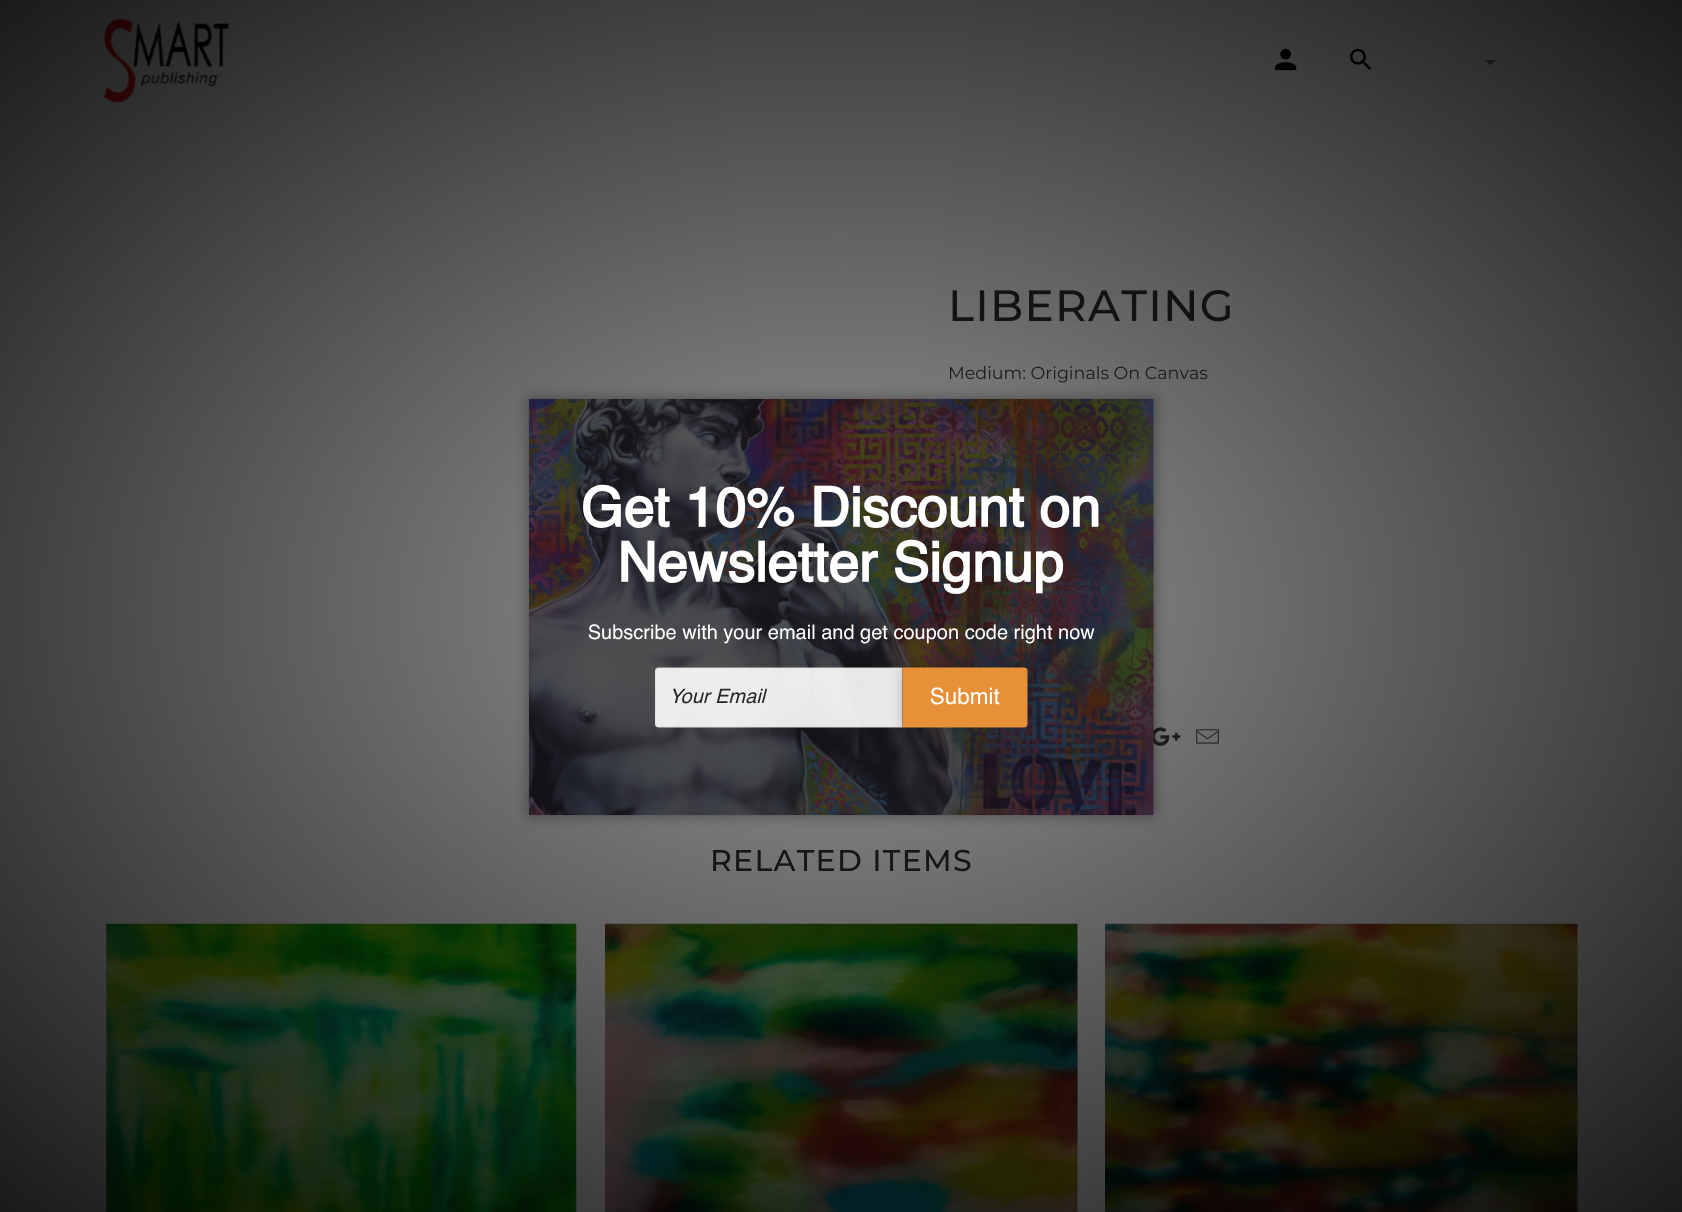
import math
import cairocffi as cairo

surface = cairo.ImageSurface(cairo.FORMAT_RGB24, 1682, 1212)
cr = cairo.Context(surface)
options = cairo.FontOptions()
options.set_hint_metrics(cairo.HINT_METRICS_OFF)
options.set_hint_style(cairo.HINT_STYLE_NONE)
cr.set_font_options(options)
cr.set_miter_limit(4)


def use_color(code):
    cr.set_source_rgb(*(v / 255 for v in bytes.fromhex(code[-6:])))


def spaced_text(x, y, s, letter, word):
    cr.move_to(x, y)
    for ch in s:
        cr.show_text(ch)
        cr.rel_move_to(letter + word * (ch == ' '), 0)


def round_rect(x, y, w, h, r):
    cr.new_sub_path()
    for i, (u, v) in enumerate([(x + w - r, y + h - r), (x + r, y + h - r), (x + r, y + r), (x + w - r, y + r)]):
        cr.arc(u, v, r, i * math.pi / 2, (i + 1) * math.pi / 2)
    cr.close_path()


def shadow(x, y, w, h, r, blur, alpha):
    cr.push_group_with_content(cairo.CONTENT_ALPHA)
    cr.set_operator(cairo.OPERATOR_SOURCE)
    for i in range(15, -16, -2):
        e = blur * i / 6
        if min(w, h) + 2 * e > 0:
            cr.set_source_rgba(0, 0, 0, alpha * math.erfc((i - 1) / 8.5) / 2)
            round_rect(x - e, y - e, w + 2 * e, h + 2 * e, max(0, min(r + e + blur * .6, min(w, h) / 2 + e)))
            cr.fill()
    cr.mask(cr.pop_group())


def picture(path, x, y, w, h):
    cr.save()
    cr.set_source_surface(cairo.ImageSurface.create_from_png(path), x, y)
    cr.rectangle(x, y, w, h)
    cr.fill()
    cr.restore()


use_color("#ffffff")
cr.paint()
picture("img2.png", 103, 18, 126, 85)
picture("img3.png", 1275, 48, 22, 23)
picture("img4.png", 1350, 48, 22, 22)
picture("img5.png", 1485, 60, 11, 6)
cr.select_font_face("Montserrat Medium")
cr.set_font_size(43.75)
use_color("#303030")
spaced_text(948, 321, "LIBERATING", 1.25, 0)
cr.select_font_face("Montserrat")
cr.set_font_size(17.5)
use_color("#404040")
cr.move_to(948, 379)
cr.show_text("Medium: Originals On Canvas")
picture("img6.png", 1153, 727, 28, 19)
picture("img7.png", 1196, 729, 23, 15)
cr.select_font_face("Montserrat Medium")
cr.set_font_size(30)
use_color("#303030")
spaced_text(710, 871, "RELATED ITEMS", 1.25, 0)
picture("img8.png", 106, 923, 471, 289)
picture("img9.png", 605, 923, 473, 289)
picture("img10.png", 1105, 923, 473, 289)
gradient = cairo.RadialGradient(0, 0, 0, 0, 0, 1)
gradient.set_matrix(cairo.Matrix(1 / 1190, 0, 0, 1 / 857, -1 * 841 / 1190, -1 * 606 / 857))
gradient.add_color_stop_rgba(0, 0, 0, 0, 0.4)
gradient.add_color_stop_rgba(1, 0, 0, 0, 0.9)
cr.set_source(gradient)
cr.rectangle(0, 0, 1682, 1212)
cr.fill()
use_color("#000000")
shadow(529, 399, 625, 416, 2.5, 7, 0.4)
picture("img1.png", 529, 399, 625, 416)
surface.write_to_png("result.png")
